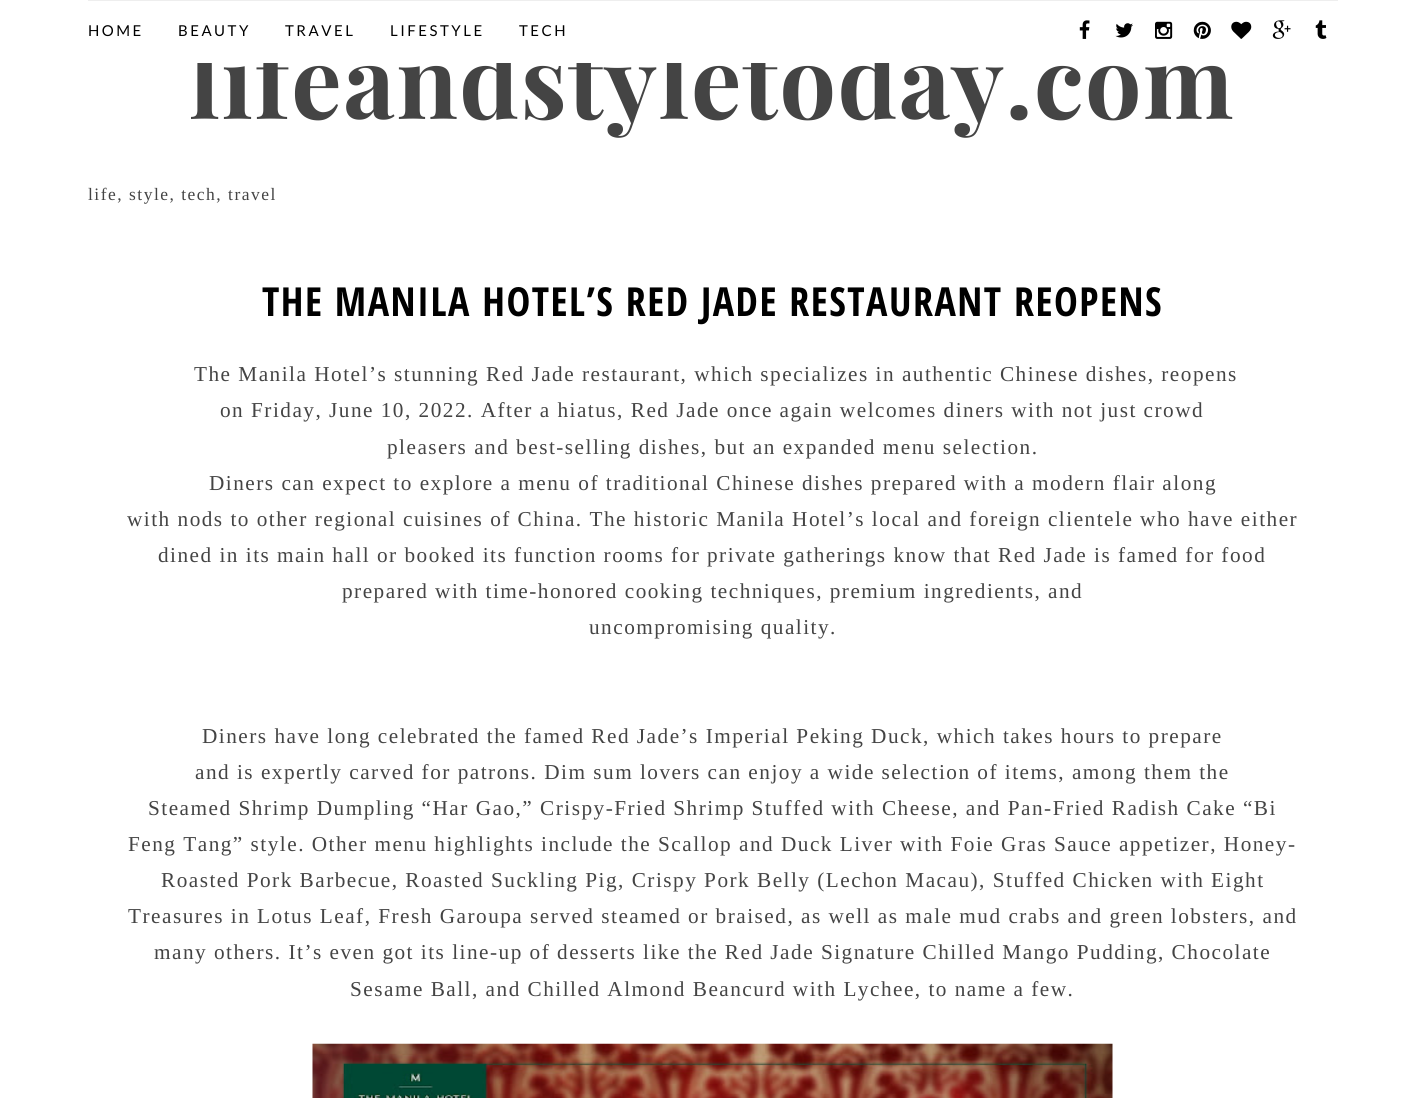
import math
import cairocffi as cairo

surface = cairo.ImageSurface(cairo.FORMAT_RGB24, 1425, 1098)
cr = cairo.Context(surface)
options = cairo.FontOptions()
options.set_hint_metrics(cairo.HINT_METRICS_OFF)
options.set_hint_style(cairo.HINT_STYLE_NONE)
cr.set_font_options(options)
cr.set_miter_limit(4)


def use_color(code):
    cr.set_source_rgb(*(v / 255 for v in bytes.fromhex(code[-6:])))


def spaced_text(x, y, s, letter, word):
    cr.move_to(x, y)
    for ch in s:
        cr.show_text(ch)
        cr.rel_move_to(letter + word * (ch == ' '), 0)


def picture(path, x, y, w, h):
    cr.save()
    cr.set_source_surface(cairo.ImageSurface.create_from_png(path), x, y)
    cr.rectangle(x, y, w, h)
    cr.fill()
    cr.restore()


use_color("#ffffff")
cr.paint()
cr.select_font_face("Playfair Display", cairo.FONT_SLANT_NORMAL, cairo.FONT_WEIGHT_BOLD)
cr.set_font_size(100)
use_color("#444444")
spaced_text(189, 119, "lifeandstyletoday.com", 1.49, 0)
use_color("#ffffff")
cr.rectangle(191, 40, 699, 23)
cr.fill()
use_color("#eeeeee")
cr.rectangle(88, 0, 1250, 1)
cr.fill()
cr.select_font_face("Lato")
cr.set_font_size(15)
use_color("#000000")
spaced_text(88, 36, "HOME", 2.5, 0)
spaced_text(178, 36, "BEAUTY", 2.5, 0)
spaced_text(285, 36, "TRAVEL", 2.5, 0)
spaced_text(390, 36, "LIFESTYLE", 2.5, 0)
spaced_text(519, 36, "TECH", 2.5, 0)
picture("img1.png", 1079, 20, 11, 19)
picture("img2.png", 1115, 23, 18, 15)
picture("img3.png", 1155, 21, 18, 18)
picture("img4.png", 1193, 21, 18, 18)
picture("img5.png", 1231, 21, 21, 18)
picture("img6.png", 1272, 20, 19, 19)
picture("img7.png", 1315, 20, 12, 19)
cr.select_font_face("Liberation Serif")
cr.set_font_size(17.5)
use_color("#444444")
spaced_text(88, 200, "life, style, tech, travel", 1.49, 0)
cr.select_font_face("Open Sans Condensed", cairo.FONT_SLANT_NORMAL, cairo.FONT_WEIGHT_BOLD)
cr.set_font_size(40)
use_color("#000000")
spaced_text(262, 316, "THE MANILA HOTEL’S RED JADE RESTAURANT REOPENS", 1.49, 0)
cr.select_font_face("Liberation Serif")
cr.set_font_size(21.25)
use_color("#444444")
spaced_text(194, 381, "The Manila Hotel’s stunning Red Jade restaurant, which specializes in authentic Chinese dishes, reopens", 1.49, 0)
spaced_text(220, 417, "on Friday, June 10, 2022. After a hiatus, Red Jade once again welcomes diners with not just crowd", 1.49, 0)
spaced_text(387, 454, "pleasers and best-selling dishes, but an expanded menu selection.", 1.49, 0)
spaced_text(209, 490, "Diners can expect to explore a menu of traditional Chinese dishes prepared with a modern flair along", 1.49, 0)
spaced_text(127, 526, "with nods to other regional cuisines of China. The historic Manila Hotel’s local and foreign clientele who have either", 1.49, 0)
spaced_text(158, 562, "dined in its main hall or booked its function rooms for private gatherings know that Red Jade is famed for food", 1.49, 0)
spaced_text(342, 598, "prepared with time-honored cooking techniques, premium ingredients, and", 1.49, 0)
spaced_text(589, 634, "uncompromising quality.", 1.49, 0)
spaced_text(202, 743, "Diners have long celebrated the famed Red Jade’s Imperial Peking Duck, which takes hours to prepare", 1.49, 0)
spaced_text(195, 779, "and is expertly carved for patrons. Dim sum lovers can enjoy a wide selection of items, among them the", 1.49, 0)
spaced_text(148, 815, "Steamed Shrimp Dumpling “Har Gao,” Crispy-Fried Shrimp Stuffed with Cheese, and Pan-Fried Radish Cake “Bi", 1.49, 0)
spaced_text(128, 851, "Feng Tang” style. Other menu highlights include the Scallop and Duck Liver with Foie Gras Sauce appetizer, Honey-", 1.49, 0)
spaced_text(161, 887, "Roasted Pork Barbecue, Roasted Suckling Pig, Crispy Pork Belly (Lechon Macau), Stuffed Chicken with Eight", 1.49, 0)
spaced_text(128, 923, "Treasures in Lotus Leaf, Fresh Garoupa served steamed or braised, as well as male mud crabs and green lobsters, and", 1.49, 0)
spaced_text(154, 959, "many others. It’s even got its line-up of desserts like the Red Jade Signature Chilled Mango Pudding, Chocolate", 1.49, 0)
spaced_text(350, 996, "Sesame Ball, and Chilled Almond Beancurd with Lychee, to name a few.", 1.49, 0)
picture("img8.png", 312, 1043, 801, 55)
surface.write_to_png("result.png")
